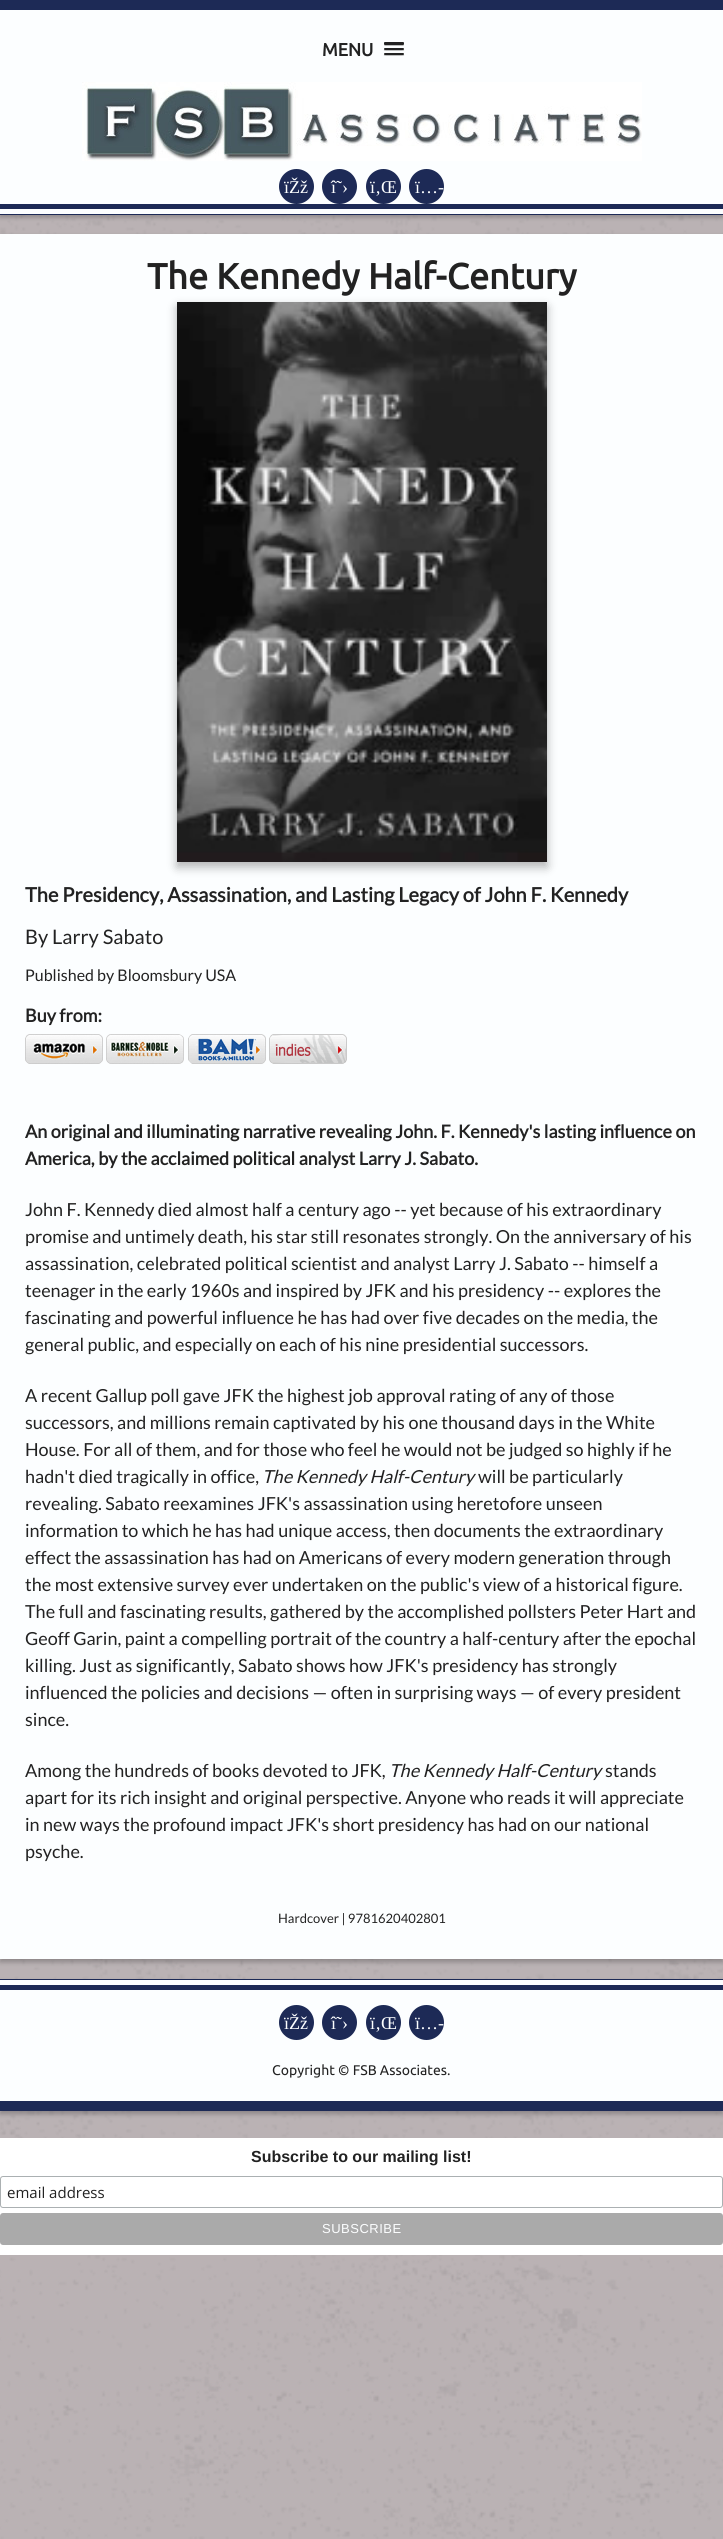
import math
import cairocffi as cairo

surface = cairo.ImageSurface(cairo.FORMAT_RGB24, 723, 2539)
cr = cairo.Context(surface)
options = cairo.FontOptions()
options.set_hint_metrics(cairo.HINT_METRICS_OFF)
options.set_hint_style(cairo.HINT_STYLE_NONE)
cr.set_font_options(options)
cr.set_miter_limit(4)


def use_color(code):
    cr.set_source_rgb(*(v / 255 for v in bytes.fromhex(code[-6:])))


def spaced_text(x, y, s, letter, word):
    cr.move_to(x, y)
    for ch in s:
        cr.show_text(ch)
        cr.rel_move_to(letter + word * (ch == ' '), 0)


def round_rect(x, y, w, h, r):
    cr.new_sub_path()
    for i, (u, v) in enumerate([(x + w - r, y + h - r), (x + r, y + h - r), (x + r, y + r), (x + w - r, y + r)]):
        cr.arc(u, v, r, i * math.pi / 2, (i + 1) * math.pi / 2)
    cr.close_path()


def shadow(x, y, w, h, r, blur, alpha):
    cr.push_group_with_content(cairo.CONTENT_ALPHA)
    cr.set_operator(cairo.OPERATOR_SOURCE)
    for i in range(15, -16, -2):
        e = blur * i / 6
        if min(w, h) + 2 * e > 0:
            cr.set_source_rgba(0, 0, 0, alpha * math.erfc((i - 1) / 8.5) / 2)
            round_rect(x - e, y - e, w + 2 * e, h + 2 * e, max(0, min(r + e + blur * .6, min(w, h) / 2 + e)))
            cr.fill()
    cr.mask(cr.pop_group())


def picture(path, x, y, w, h):
    cr.save()
    cr.set_source_surface(cairo.ImageSurface.create_from_png(path), x, y)
    cr.rectangle(x, y, w, h)
    cr.fill()
    cr.restore()


use_color("#bab2b4")
cr.paint()
picture("img1.png", 0, 215, 723, 2324)
use_color("#000000")
shadow(0, 3, 723, 214, 0, 2.5, 0.25)
use_color("#fcfeff")
cr.rectangle(0, 10, 723, 194)
cr.fill()
use_color("#1d2a56")
cr.rectangle(0, 0, 723, 10)
cr.fill()
cr.select_font_face("Ubuntu", cairo.FONT_SLANT_NORMAL, cairo.FONT_WEIGHT_BOLD)
cr.set_font_size(18)
use_color("#222222")
cr.move_to(322, 56)
cr.show_text("MENU")
use_color("#bdbfbf")
cr.new_path()
cr.move_to(384, 44)
cr.curve_to(384, 46.5, 385, 46, 388, 46)
cr.line_to(400, 46)
cr.curve_to(403, 46, 404, 46.5, 404, 44)
cr.curve_to(404, 44.5, 403.5, 45, 403, 45)
cr.line_to(385, 45)
cr.curve_to(384.5, 45, 384, 44.5, 384, 44)
cr.close_path()
cr.fill()
use_color("#222222")
round_rect(384, 42, 20, 3, 1)
cr.fill()
use_color("#bdbfbf")
cr.new_path()
cr.move_to(384, 49.5)
cr.curve_to(383, 51, 386, 51, 388, 51)
cr.line_to(400, 51)
cr.curve_to(402, 51, 405, 51, 404, 49.5)
cr.line_to(403, 50)
cr.line_to(385, 50)
cr.close_path()
cr.fill()
use_color("#222222")
round_rect(384, 48, 20, 2, 1)
cr.fill()
use_color("#bdbfbf")
cr.new_path()
cr.move_to(384, 54.5)
cr.curve_to(383, 56, 386, 56, 388, 56)
cr.line_to(400, 56)
cr.curve_to(402, 56, 405, 56, 404, 54.5)
cr.line_to(403, 55)
cr.line_to(385, 55)
cr.close_path()
cr.fill()
use_color("#222222")
round_rect(384, 53, 20, 2, 1)
cr.fill()
picture("img2.png", 82, 82, 560, 79)
use_color("#1d2a56")
cr.arc(296.5, 186.5, 17.5, 0, 2 * math.pi)
cr.fill()
cr.select_font_face("Liberation Serif")
use_color("#fcfeff")
cr.move_to(284, 193)
cr.show_text("ïŽž")
use_color("#1d2a56")
cr.new_path()
cr.arc(339.5, 186.5, 17.5, 0, 2 * math.pi)
cr.fill()
use_color("#fcfeff")
cr.move_to(331, 193)
cr.show_text("î˜›")
use_color("#1d2a56")
cr.new_path()
cr.arc(383.5, 186.5, 17.5, 0, 2 * math.pi)
cr.fill()
use_color("#fcfeff")
cr.move_to(370, 193)
cr.show_text("ï‚Œ")
use_color("#1d2a56")
cr.new_path()
cr.arc(426.5, 186.5, 17.5, 0, 2 * math.pi)
cr.fill()
use_color("#fcfeff")
cr.move_to(415, 193)
cr.show_text("ï…-")
use_color("#1d2a56")
cr.rectangle(0, 214, 723, 1)
cr.fill()
cr.rectangle(0, 204, 723, 5)
cr.fill()
use_color("#fcfeff")
cr.rectangle(0, 209, 723, 5)
cr.fill()
use_color("#000000")
shadow(0, 237, 723, 1725, 0, 2.5, 0.25)
use_color("#fcfeff")
cr.rectangle(0, 234, 723, 1725)
cr.fill()
cr.select_font_face("Ubuntu", cairo.FONT_SLANT_NORMAL, cairo.FONT_WEIGHT_BOLD)
cr.set_font_size(36)
use_color("#222222")
cr.move_to(147, 289)
cr.show_text("The Kennedy Half-Century")
use_color("#000000")
shadow(177, 307, 370, 560, 0, 5, 0.3)
picture("img3.png", 177, 302, 370, 560)
cr.select_font_face("Lato", cairo.FONT_SLANT_NORMAL, cairo.FONT_WEIGHT_BOLD)
cr.set_font_size(20)
use_color("#222222")
cr.move_to(25, 902)
cr.show_text("The Presidency, Assassination, and Lasting Legacy of John F. Kennedy")
cr.select_font_face("Lato")
cr.move_to(25, 944)
cr.show_text("By Larry Sabato")
cr.set_font_size(16)
cr.move_to(25, 981)
cr.show_text("Published by Bloomsbury USA")
cr.select_font_face("Lato", cairo.FONT_SLANT_NORMAL, cairo.FONT_WEIGHT_BOLD)
cr.set_font_size(18)
cr.move_to(25, 1022)
cr.show_text("Buy from:")
picture("img4.png", 25, 1034, 78, 30)
picture("img5.png", 106, 1034, 78, 30)
picture("img6.png", 188, 1034, 78, 30)
picture("img7.png", 269, 1034, 78, 30)
cr.move_to(25, 1138)
cr.show_text("An original and illuminating narrative revealing John. F. Kennedy's lasting influence on")
cr.move_to(25, 1165)
cr.show_text("America, by the acclaimed political analyst Larry J. Sabato.")
cr.select_font_face("Lato")
cr.move_to(25, 1216)
cr.show_text("John F. Kennedy died almost half a century ago -- yet because of his extraordinary")
cr.move_to(25, 1243)
cr.show_text("promise and untimely death, his star still resonates strongly. On the anniversary of his")
cr.move_to(25, 1270)
cr.show_text("assassination, celebrated political scientist and analyst Larry J. Sabato -- himself a")
cr.move_to(25, 1297)
cr.show_text("teenager in the early 1960s and inspired by JFK and his presidency -- explores the")
cr.move_to(25, 1324)
cr.show_text("fascinating and powerful influence he has had over five decades on the media, the")
cr.move_to(25, 1351)
cr.show_text("general public, and especially on each of his nine presidential successors.")
cr.move_to(25, 1402)
cr.show_text("A recent Gallup poll gave JFK the highest job approval rating of any of those")
cr.move_to(25, 1429)
cr.show_text("successors, and millions remain captivated by his one thousand days in the White")
cr.move_to(25, 1456)
cr.show_text("House. For all of them, and for those who feel he would not be judged so highly if he")
cr.move_to(25, 1483)
cr.show_text("hadn't died tragically in office,")
cr.select_font_face("Lato", cairo.FONT_SLANT_ITALIC)
cr.move_to(262, 1483)
cr.show_text("The Kennedy Half-Century")
cr.select_font_face("Lato")
cr.move_to(478, 1483)
cr.show_text("will be particularly")
cr.move_to(25, 1510)
cr.show_text("revealing. Sabato reexamines JFK's assassination using heretofore unseen")
cr.move_to(25, 1537)
cr.show_text("information to which he has had unique access, then documents the extraordinary")
cr.move_to(25, 1564)
cr.show_text("effect the assassination has had on Americans of every modern generation through")
cr.move_to(25, 1591)
cr.show_text("the most extensive survey ever undertaken on the public's view of a historical figure.")
cr.move_to(25, 1618)
cr.show_text("The full and fascinating results, gathered by the accomplished pollsters Peter Hart and")
cr.move_to(25, 1645)
cr.show_text("Geoff Garin, paint a compelling portrait of the country a half-century after the epochal")
cr.move_to(25, 1672)
cr.show_text("killing. Just as significantly, Sabato shows how JFK's presidency has strongly")
cr.move_to(25, 1699)
cr.show_text("influenced the policies and decisions — often in surprising ways — of every president")
cr.move_to(25, 1726)
cr.show_text("since.")
cr.move_to(25, 1777)
cr.show_text("Among the hundreds of books devoted to JFK,")
cr.select_font_face("Lato", cairo.FONT_SLANT_ITALIC)
cr.move_to(389, 1777)
cr.show_text("The Kennedy Half-Century")
cr.select_font_face("Lato")
cr.move_to(605, 1777)
cr.show_text("stands")
cr.move_to(25, 1804)
cr.show_text("apart for its rich insight and original perspective. Anyone who reads it will appreciate")
cr.move_to(25, 1831)
cr.show_text("in new ways the profound impact JFK's short presidency has had on our national")
cr.move_to(25, 1858)
cr.show_text("psyche.")
cr.set_font_size(13)
cr.move_to(278, 1923)
cr.show_text("Hardcover | 9781620402801")
use_color("#000000")
shadow(0, 1982, 723, 132, 0, 2.5, 0.25)
use_color("#fcfeff")
cr.rectangle(0, 1980, 723, 121)
cr.fill()
use_color("#1d2a56")
cr.rectangle(0, 2101, 723, 10)
cr.fill()
cr.rectangle(0, 1985, 723, 5)
cr.fill()
cr.rectangle(0, 1979, 723, 1)
cr.fill()
cr.arc(296.5, 2022.5, 17.5, 0, 2 * math.pi)
cr.fill()
cr.select_font_face("Liberation Serif")
cr.set_font_size(18)
use_color("#fcfeff")
cr.move_to(284, 2029)
cr.show_text("ïŽž")
use_color("#1d2a56")
cr.new_path()
cr.arc(339.5, 2022.5, 17.5, 0, 2 * math.pi)
cr.fill()
use_color("#fcfeff")
cr.move_to(331, 2029)
cr.show_text("î˜›")
use_color("#1d2a56")
cr.new_path()
cr.arc(383.5, 2022.5, 17.5, 0, 2 * math.pi)
cr.fill()
use_color("#fcfeff")
cr.move_to(370, 2029)
cr.show_text("ï‚Œ")
use_color("#1d2a56")
cr.new_path()
cr.arc(426.5, 2022.5, 17.5, 0, 2 * math.pi)
cr.fill()
use_color("#fcfeff")
cr.move_to(415, 2029)
cr.show_text("ï…-")
cr.select_font_face("Ubuntu")
cr.set_font_size(14)
use_color("#222222")
cr.move_to(272, 2075)
cr.show_text("Copyright © FSB Associates.")
use_color("#ffffff")
cr.rectangle(0, 2138, 723, 117)
cr.fill()
cr.select_font_face("Liberation Sans", cairo.FONT_SLANT_NORMAL, cairo.FONT_WEIGHT_BOLD)
cr.set_font_size(16)
use_color("#222222")
cr.move_to(251, 2162)
cr.show_text("Subscribe to our mailing list!")
round_rect(0.5, 2176.5, 722, 31, 2.5)
use_color("#abb0b2")
cr.set_line_width(1)
cr.stroke()
cr.select_font_face("Open Sans")
cr.set_font_size(15)
use_color("#222222")
cr.move_to(7, 2198)
cr.show_text("email address")
use_color("#aaaaaa")
round_rect(0, 2213, 723, 32, 3)
cr.fill()
cr.select_font_face("Liberation Sans")
cr.set_font_size(13)
use_color("#fcfeff")
spaced_text(322, 2233, "SUBSCRIBE", 0.5, 0)
surface.write_to_png("result.png")
